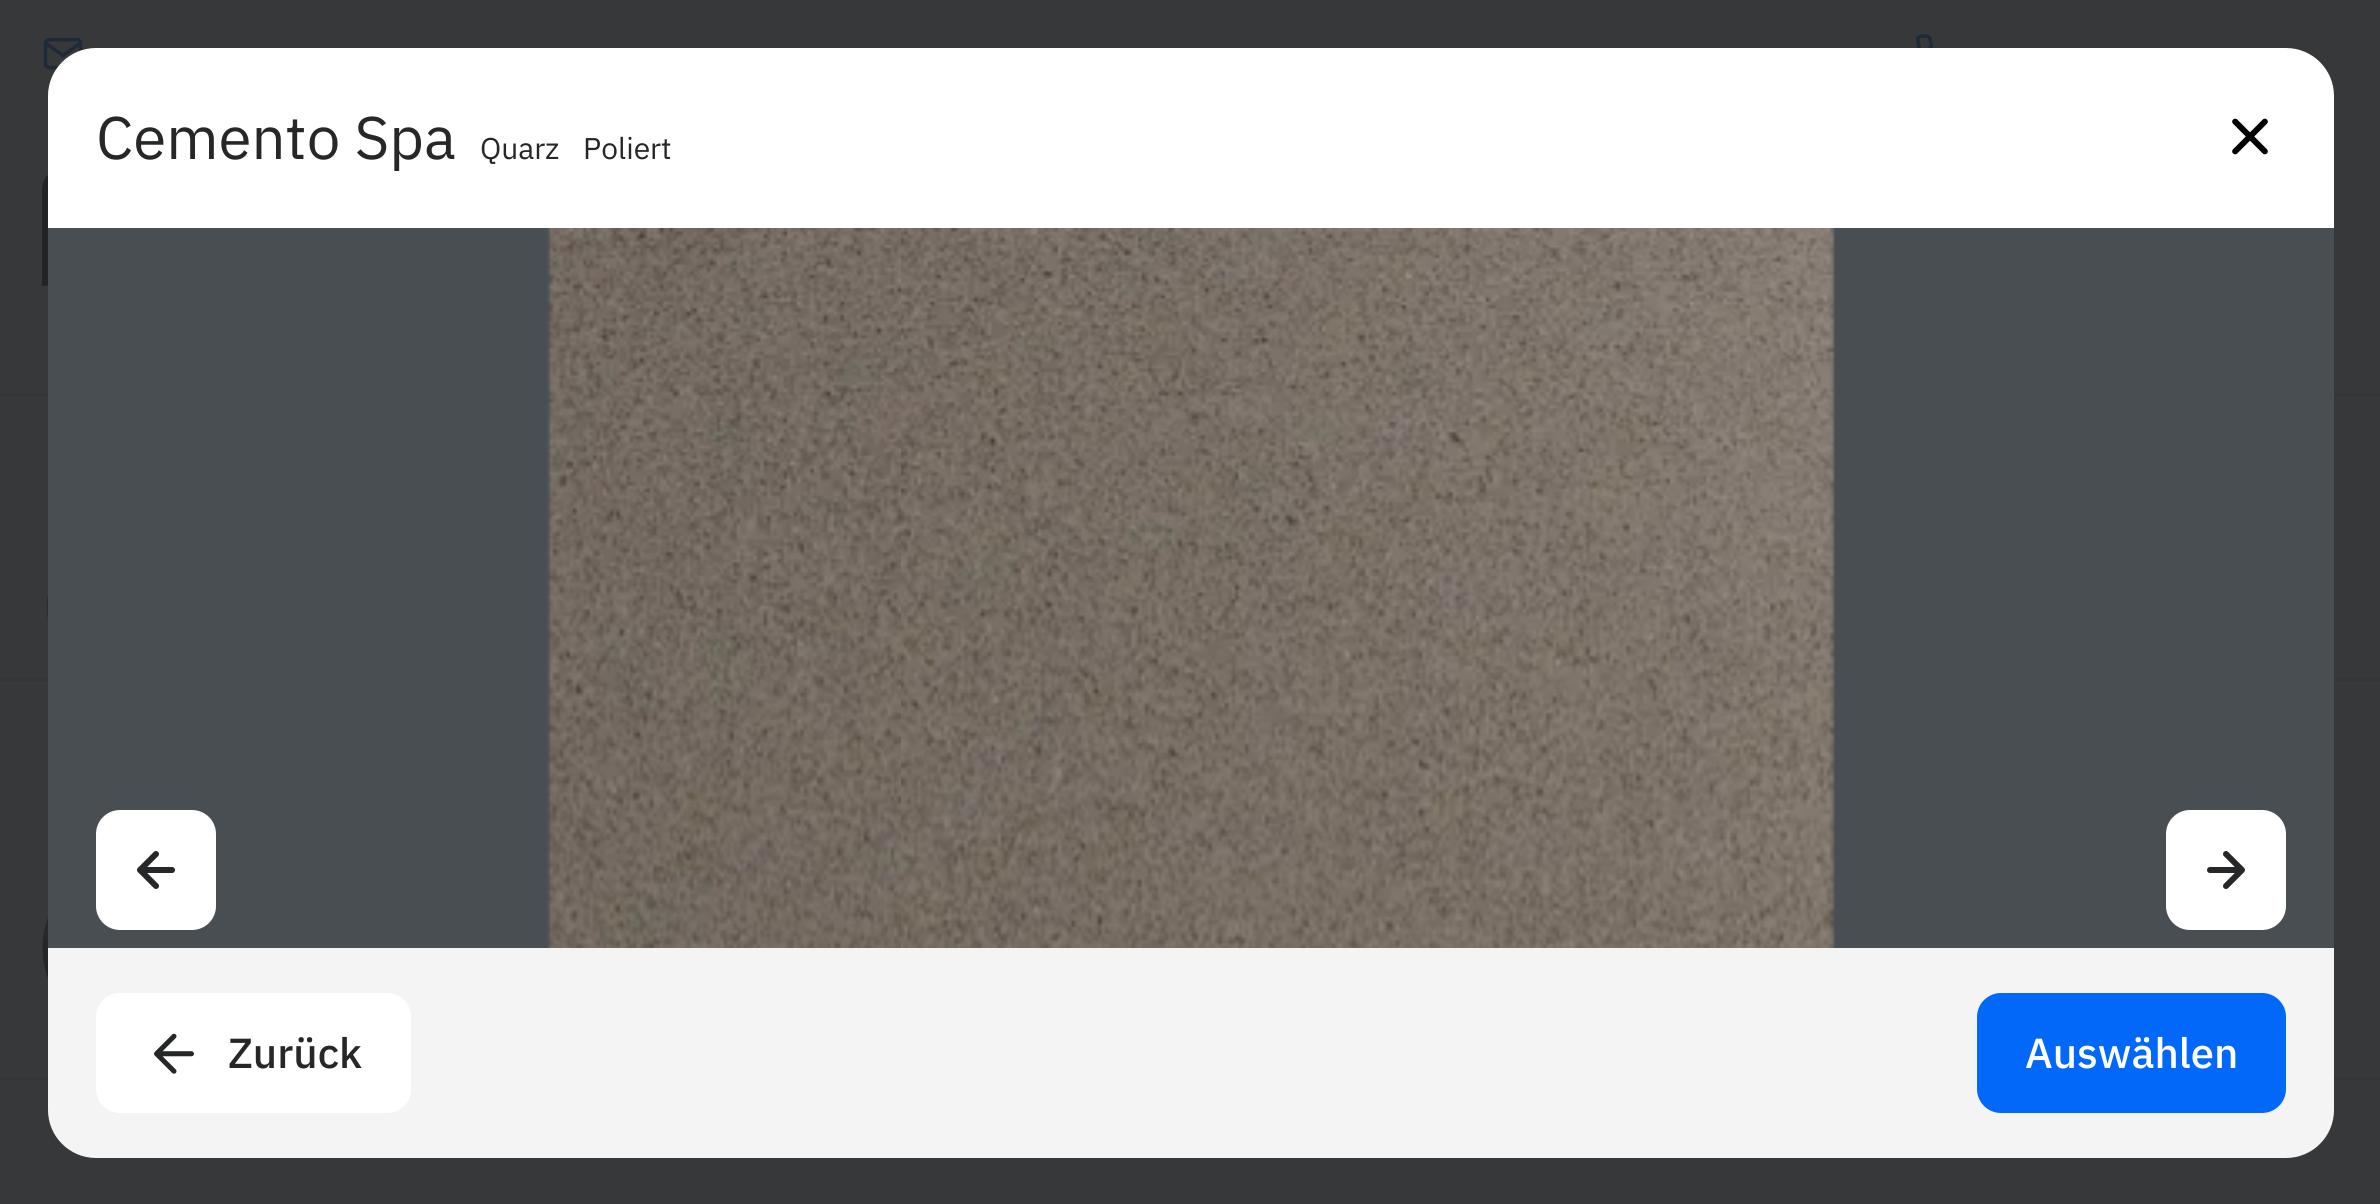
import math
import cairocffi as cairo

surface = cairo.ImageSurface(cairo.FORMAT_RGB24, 2380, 1204)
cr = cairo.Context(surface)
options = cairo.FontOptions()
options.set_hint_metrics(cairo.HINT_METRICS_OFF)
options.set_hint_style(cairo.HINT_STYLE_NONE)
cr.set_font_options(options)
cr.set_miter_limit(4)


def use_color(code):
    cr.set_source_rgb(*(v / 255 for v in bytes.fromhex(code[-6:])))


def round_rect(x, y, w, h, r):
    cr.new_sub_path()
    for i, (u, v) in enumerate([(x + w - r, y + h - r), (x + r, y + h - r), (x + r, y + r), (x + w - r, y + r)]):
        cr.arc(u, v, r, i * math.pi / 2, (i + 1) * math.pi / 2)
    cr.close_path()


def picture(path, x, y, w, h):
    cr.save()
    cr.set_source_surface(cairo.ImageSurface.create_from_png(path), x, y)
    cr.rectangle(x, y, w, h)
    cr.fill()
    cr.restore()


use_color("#363839")
cr.paint()
picture("img1.png", 43, 37, 40, 33)
picture("img2.png", 1915, 34, 18, 14)
picture("img3.png", 42, 175, 6, 111)
use_color("#ffffff")
cr.new_path()
cr.move_to(96, 48)
cr.line_to(2286, 48)
cr.curve_to(2312.5, 48, 2334, 69.5, 2334, 96)
cr.line_to(2334, 228)
cr.line_to(48, 228)
cr.line_to(48, 96)
cr.curve_to(48, 69.5, 69.5, 48, 96, 48)
cr.close_path()
cr.fill()
cr.select_font_face("IBM Plex Sans")
cr.set_font_size(60)
use_color("#252729")
cr.move_to(96, 159)
cr.show_text("Cemento Spa")
cr.set_font_size(30)
cr.move_to(480, 159)
cr.show_text("Quarz")
cr.move_to(583, 159)
cr.show_text("Poliert")
picture("img4.png", 2232, 118, 36, 37)
use_color("#343537")
cr.rectangle(0, 393, 2380, 3)
cr.fill()
cr.rectangle(0, 678, 2380, 3)
cr.fill()
use_color("#494e52")
cr.rectangle(48, 228, 2286, 720)
cr.fill()
use_color("#ffffff")
round_rect(96, 810, 120, 120, 24)
cr.fill()
cr.new_path()
cr.move_to(172, 870)
cr.line_to(140, 870)
cr.move_to(156, 886)
cr.line_to(140, 870)
cr.line_to(156, 854)
use_color("#252729")
cr.set_line_width(6)
cr.set_line_cap(cairo.LINE_CAP_ROUND)
cr.set_line_join(cairo.LINE_JOIN_ROUND)
cr.stroke()
picture("img5.png", 546, 228, 1289, 720)
use_color("#ffffff")
round_rect(2166, 810, 120, 120, 24)
cr.fill()
cr.new_path()
cr.move_to(2210, 870)
cr.line_to(2242, 870)
cr.move_to(2226, 886)
cr.line_to(2242, 870)
cr.line_to(2226, 854)
use_color("#252729")
cr.stroke()
use_color("#343537")
cr.rectangle(0, 1077, 2380, 3)
cr.fill()
use_color("#f4f4f5")
cr.new_path()
cr.move_to(48, 948)
cr.line_to(2334, 948)
cr.line_to(2334, 1110)
cr.curve_to(2334, 1136.5, 2312.5, 1158, 2286, 1158)
cr.line_to(96, 1158)
cr.curve_to(69.5, 1158, 48, 1136.5, 48, 1110)
cr.close_path()
cr.fill()
use_color("#ffffff")
round_rect(96, 993, 315, 120, 24)
cr.fill()
picture("img6.png", 154, 1033, 40, 41)
cr.select_font_face("IBM Plex Sans Medium")
cr.set_font_size(42)
use_color("#252729")
cr.move_to(228, 1068)
cr.show_text("Zurück")
use_color("#0168fa")
round_rect(1977, 993, 309, 120, 24)
cr.fill()
use_color("#ffffff")
cr.move_to(2025, 1068)
cr.show_text("Auswählen")
picture("img7.png", 47, 594, 1, 25)
picture("img8.png", 42, 917, 6, 61)
surface.write_to_png("result.png")
